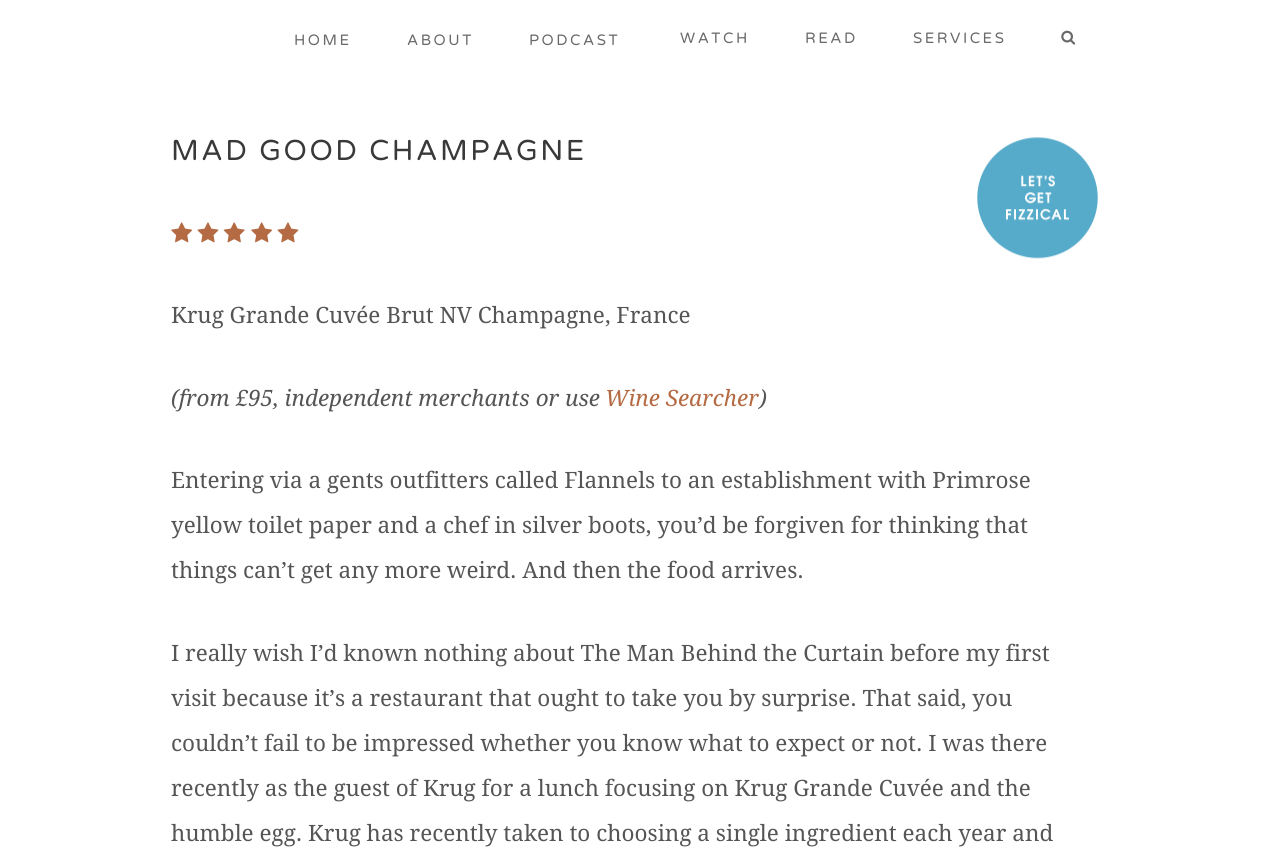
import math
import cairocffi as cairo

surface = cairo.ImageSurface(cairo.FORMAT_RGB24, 1269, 856)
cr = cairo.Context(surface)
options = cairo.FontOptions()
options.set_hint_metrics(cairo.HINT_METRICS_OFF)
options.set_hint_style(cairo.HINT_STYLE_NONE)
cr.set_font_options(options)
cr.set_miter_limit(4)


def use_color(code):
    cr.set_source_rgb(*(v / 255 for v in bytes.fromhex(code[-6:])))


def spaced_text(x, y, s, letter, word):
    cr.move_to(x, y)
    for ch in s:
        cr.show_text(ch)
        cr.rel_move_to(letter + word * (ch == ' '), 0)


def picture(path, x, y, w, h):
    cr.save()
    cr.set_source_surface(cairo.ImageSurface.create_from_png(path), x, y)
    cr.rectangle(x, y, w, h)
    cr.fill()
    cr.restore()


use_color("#ffffff")
cr.paint()
cr.select_font_face("Varela Round")
cr.set_font_size(15)
use_color("#696969")
spaced_text(294, 45, "HOME", 2.5, 0)
spaced_text(407, 45, "ABOUT", 2.5, 0)
spaced_text(529, 45, "PODCAST", 2.5, 0)
spaced_text(680, 43, "WATCH", 2.5, 0)
spaced_text(805, 43, "READ", 2.5, 0)
spaced_text(913, 43, "SERVICES", 2.5, 0)
picture("img1.png", 1061, 30, 15, 15)
cr.set_font_size(28.75)
use_color("#393939")
spaced_text(171, 160, "MAD GOOD CHAMPAGNE", 2.5, 0)
picture("img2.png", 977, 137, 121, 122)
picture("img3.png", 171, 222, 22, 21)
picture("img4.png", 197, 222, 22, 21)
picture("img5.png", 223, 222, 22, 21)
picture("img3.png", 251, 222, 22, 21)
picture("img4.png", 277, 222, 22, 21)
cr.select_font_face("Droid Serif")
cr.set_font_size(22.5)
use_color("#555555")
cr.move_to(171, 323)
cr.show_text("Krug Grande Cuvée Brut NV Champagne, France")
cr.select_font_face("Droid Serif", cairo.FONT_SLANT_ITALIC)
cr.move_to(171, 406)
cr.show_text("(from £95, independent merchants or use")
use_color("#b46a42")
cr.move_to(605, 406)
cr.show_text("Wine Searcher")
use_color("#555555")
cr.move_to(759, 406)
cr.show_text(")")
cr.select_font_face("Droid Serif")
cr.move_to(171, 488)
cr.show_text("Entering via a gents outfitters called Flannels to an establishment with Primrose")
cr.move_to(171, 533)
cr.show_text("yellow toilet paper and a chef in silver boots, you’d be forgiven for thinking that")
cr.move_to(171, 578)
cr.show_text("things can’t get any more weird. And then the food arrives.")
cr.move_to(171, 661)
cr.show_text("I really wish I’d known nothing about The Man Behind the Curtain before my first")
cr.move_to(171, 706)
cr.show_text("visit because it’s a restaurant that ought to take you by surprise. That said, you")
cr.move_to(171, 751)
cr.show_text("couldn’t fail to be impressed whether you know what to expect or not. I was there")
cr.move_to(171, 796)
cr.show_text("recently as the guest of Krug for a lunch focusing on Krug Grande Cuvée and the")
cr.move_to(171, 841)
cr.show_text("humble egg. Krug has recently taken to choosing a single ingredient each year and")
surface.write_to_png("result.png")
